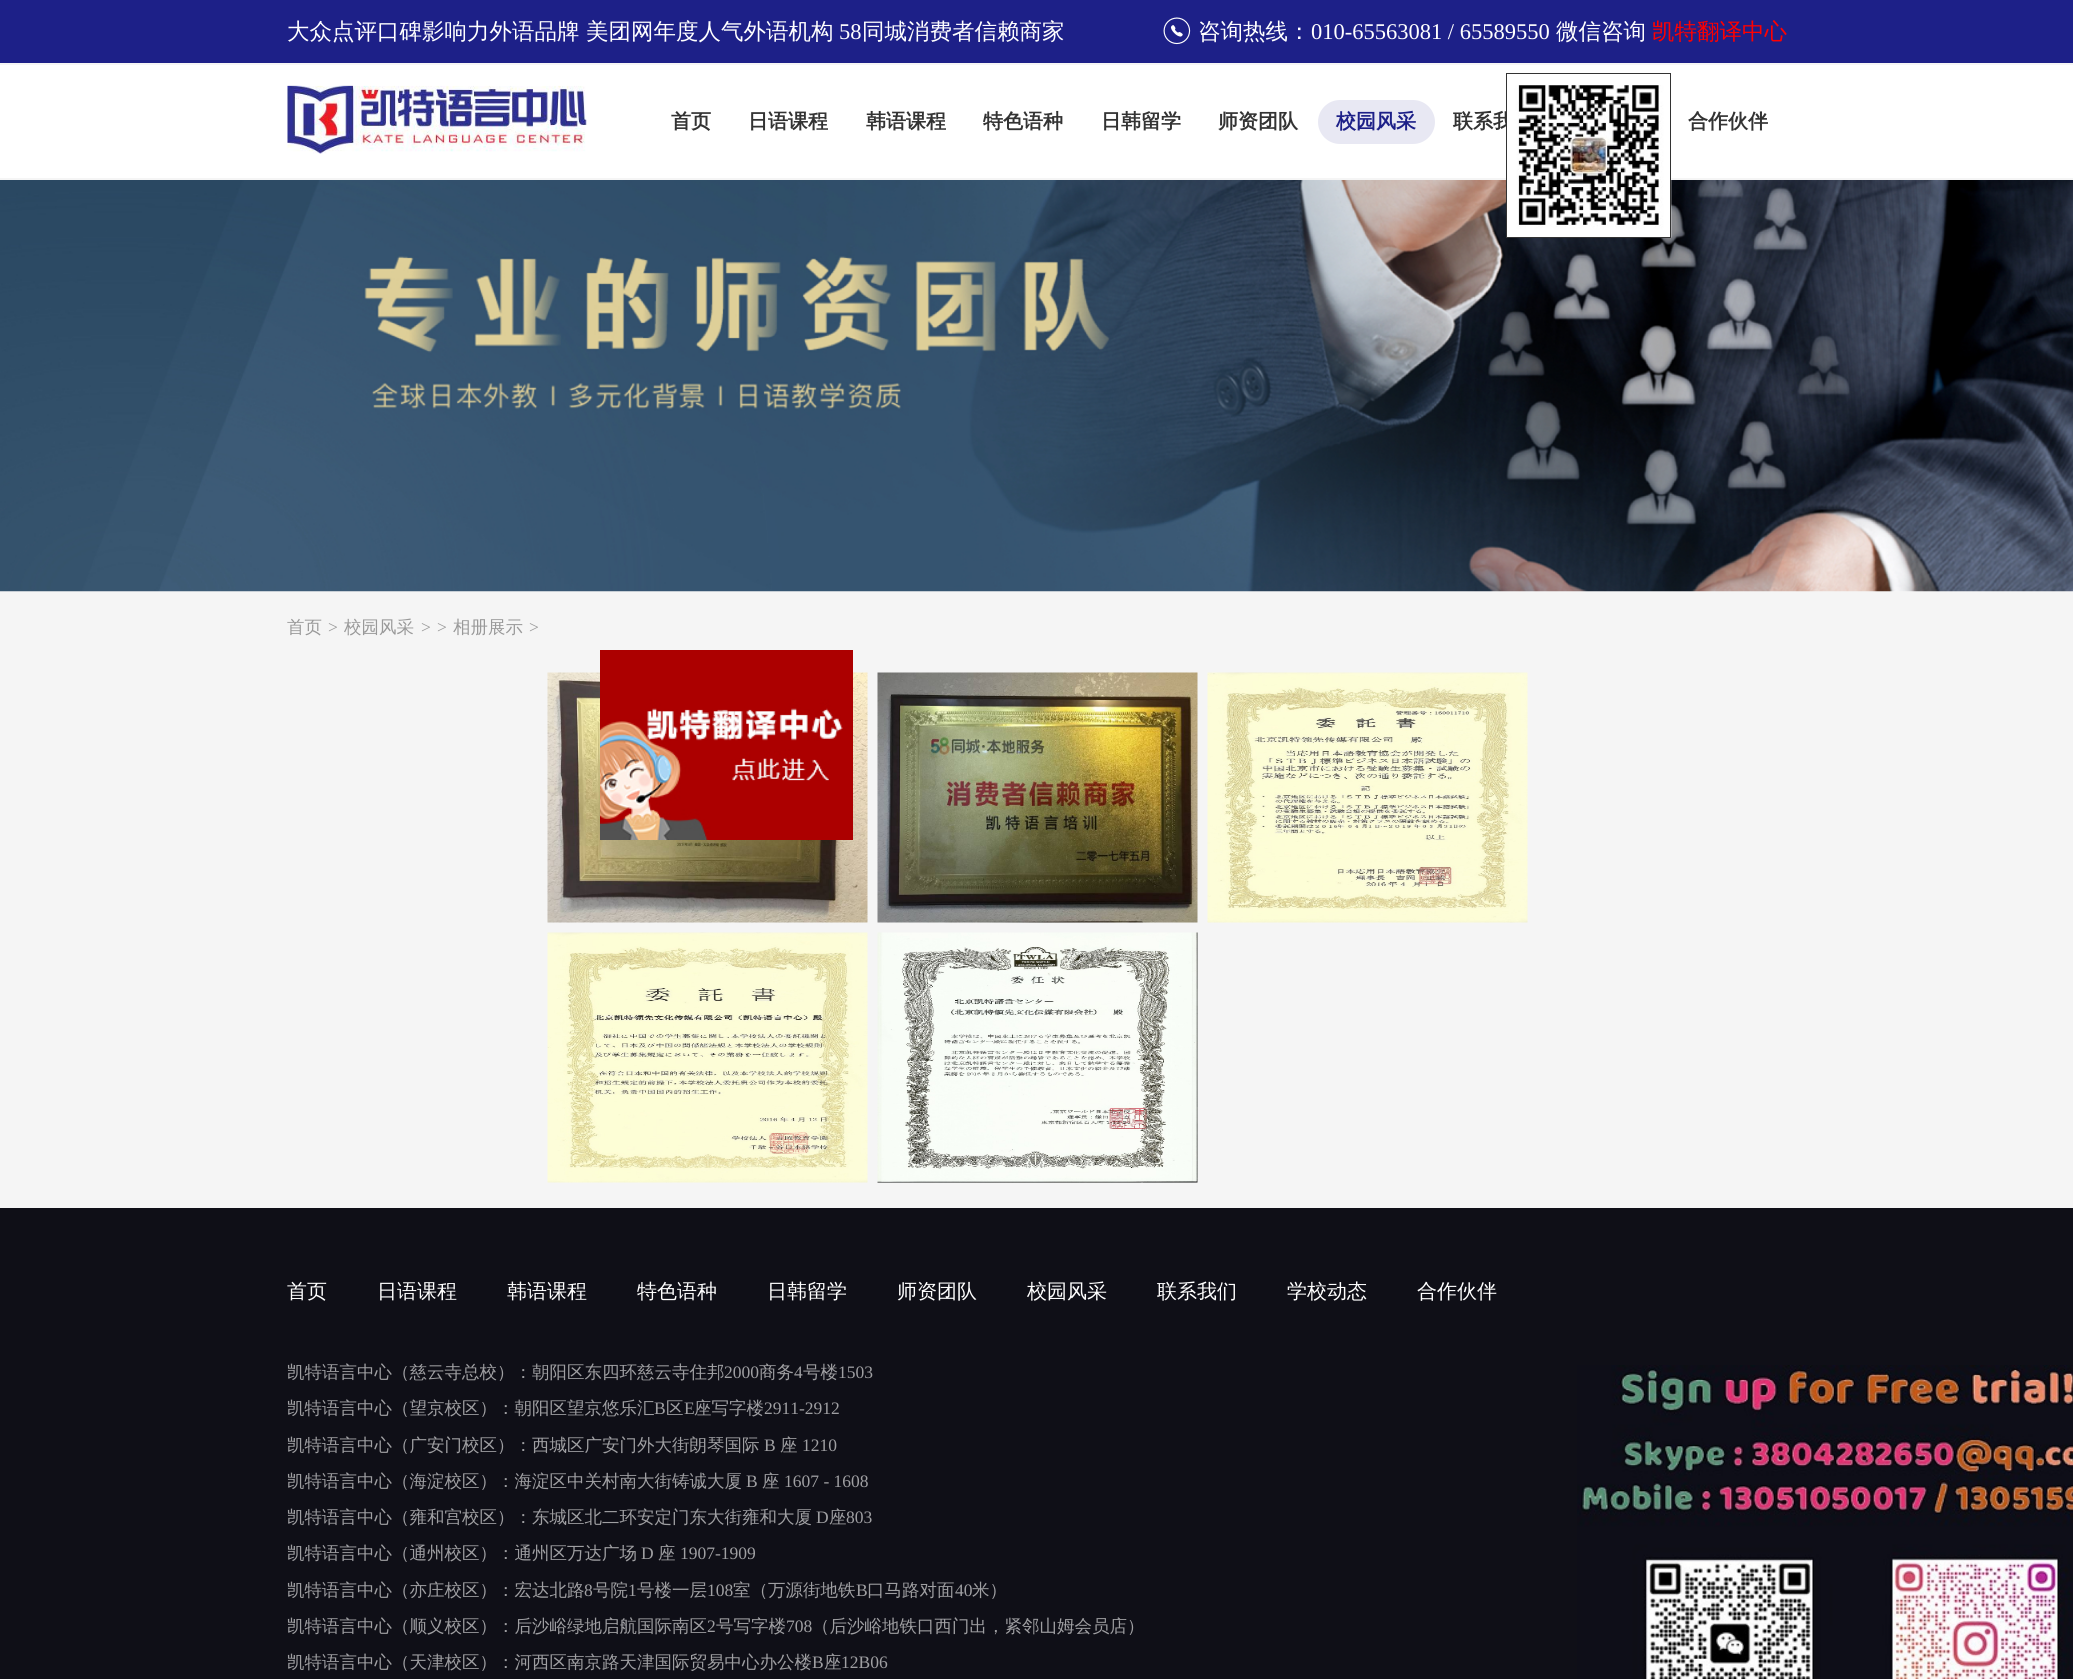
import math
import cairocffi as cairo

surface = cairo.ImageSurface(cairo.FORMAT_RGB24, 2073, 1679)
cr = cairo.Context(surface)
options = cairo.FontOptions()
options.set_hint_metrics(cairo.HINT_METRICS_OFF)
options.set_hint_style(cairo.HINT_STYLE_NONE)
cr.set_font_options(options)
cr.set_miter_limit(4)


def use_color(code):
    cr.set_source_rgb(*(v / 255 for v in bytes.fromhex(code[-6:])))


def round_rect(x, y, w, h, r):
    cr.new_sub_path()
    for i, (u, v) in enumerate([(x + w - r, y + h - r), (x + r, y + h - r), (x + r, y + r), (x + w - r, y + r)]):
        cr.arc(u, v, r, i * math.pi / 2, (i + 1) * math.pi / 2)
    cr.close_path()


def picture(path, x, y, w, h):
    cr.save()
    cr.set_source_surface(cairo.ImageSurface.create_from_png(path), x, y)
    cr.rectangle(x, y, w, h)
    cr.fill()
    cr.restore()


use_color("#f5f5f5")
cr.paint()
use_color("#1d2088")
cr.rectangle(0, 0, 2073, 63)
cr.fill()
cr.select_font_face("WenQuanYi Zen Hei Medium")
cr.set_font_size(22.5)
use_color("#ffffff")
cr.move_to(287, 39)
cr.show_text("大众点评口碑影响力外语品牌")
cr.move_to(586, 39)
cr.show_text("美团网年度人气外语机构")
cr.select_font_face("Liberation Serif")
cr.move_to(839, 39)
cr.show_text("58")
cr.select_font_face("WenQuanYi Zen Hei Medium")
cr.move_to(862, 39)
cr.show_text("同城消费者信赖商家")
picture("img1.png", 1163, 17, 28, 28)
cr.move_to(1198, 39)
cr.show_text("咨询热线：")
cr.select_font_face("Liberation Serif")
cr.move_to(1311, 39)
cr.show_text("010-65563081 / 65589550")
cr.select_font_face("WenQuanYi Zen Hei Medium")
cr.move_to(1556, 39)
cr.show_text("微信咨询")
cr.rectangle(0, 65, 2073, 113)
cr.fill()
cr.select_font_face("WenQuanYi Zen Hei", cairo.FONT_SLANT_NORMAL, cairo.FONT_WEIGHT_BOLD)
cr.set_font_size(20)
use_color("#333333")
cr.move_to(1453, 128)
cr.show_text("联系我")
picture("img4.png", 0, 180, 2073, 412)
picture("img2.png", 1507, 85, 165, 153)
cr.rectangle(1506.5, 73.5, 164, 164)
cr.set_line_width(1)
cr.stroke()
cr.select_font_face("WenQuanYi Zen Hei Medium")
cr.set_font_size(22.5)
use_color("#ff0000")
cr.move_to(1652, 39)
cr.show_text("凯特翻译中心")
picture("img3.png", 287, 85, 300, 69)
cr.select_font_face("WenQuanYi Zen Hei", cairo.FONT_SLANT_NORMAL, cairo.FONT_WEIGHT_BOLD)
cr.set_font_size(20)
use_color("#333333")
cr.move_to(671, 128)
cr.show_text("首页")
cr.move_to(748, 128)
cr.show_text("日语课程")
cr.move_to(866, 128)
cr.show_text("韩语课程")
cr.move_to(983, 128)
cr.show_text("特色语种")
cr.move_to(1101, 128)
cr.show_text("日韩留学")
cr.move_to(1218, 128)
cr.show_text("师资团队")
use_color("#e8e8f3")
round_rect(1318, 100, 117, 44, 22)
cr.fill()
use_color("#1d2088")
cr.move_to(1336, 128)
cr.show_text("校园风采")
use_color("#333333")
cr.move_to(1688, 128)
cr.show_text("合作伙伴")
cr.select_font_face("WenQuanYi Zen Hei Medium")
cr.set_font_size(17.5)
use_color("#999999")
cr.move_to(287, 633)
cr.show_text("首页")
cr.select_font_face("Liberation Serif")
cr.move_to(328, 633)
cr.show_text(">")
cr.select_font_face("WenQuanYi Zen Hei Medium")
cr.move_to(344, 633)
cr.show_text("校园风采")
cr.select_font_face("Liberation Serif")
cr.move_to(421, 633)
cr.show_text(">")
cr.move_to(437, 633)
cr.show_text(">")
cr.select_font_face("WenQuanYi Zen Hei Medium")
cr.move_to(453, 633)
cr.show_text("相册展示")
cr.select_font_face("Liberation Serif")
cr.move_to(529, 633)
cr.show_text(">")
picture("img6.png", 547, 672, 321, 251)
picture("img5.png", 600, 650, 253, 190)
picture("img7.png", 877, 672, 321, 251)
picture("img8.png", 1207, 672, 321, 251)
picture("img9.png", 547, 932, 321, 251)
picture("img10.png", 877, 932, 321, 251)
use_color("#0f0f17")
cr.rectangle(0, 1208, 2073, 471)
cr.fill()
cr.select_font_face("WenQuanYi Zen Hei Medium")
cr.set_font_size(20)
use_color("#ffffff")
cr.move_to(287, 1298)
cr.show_text("首页")
cr.move_to(377, 1298)
cr.show_text("日语课程")
cr.move_to(507, 1298)
cr.show_text("韩语课程")
cr.move_to(637, 1298)
cr.show_text("特色语种")
cr.move_to(767, 1298)
cr.show_text("日韩留学")
cr.move_to(897, 1298)
cr.show_text("师资团队")
cr.move_to(1027, 1298)
cr.show_text("校园风采")
cr.move_to(1157, 1298)
cr.show_text("联系我们")
cr.move_to(1287, 1298)
cr.show_text("学校动态")
cr.move_to(1417, 1298)
cr.show_text("合作伙伴")
cr.set_font_size(17.5)
use_color("#9f9fa2")
cr.move_to(287, 1378)
cr.show_text("凯特语言中心（慈云寺总校）：朝阳区东四环慈云寺住邦")
cr.select_font_face("Liberation Serif")
cr.move_to(724, 1378)
cr.show_text("2000")
cr.select_font_face("WenQuanYi Zen Hei Medium")
cr.move_to(759, 1378)
cr.show_text("商务")
cr.select_font_face("Liberation Serif")
cr.move_to(794, 1378)
cr.show_text("4")
cr.select_font_face("WenQuanYi Zen Hei Medium")
cr.move_to(803, 1378)
cr.show_text("号楼")
cr.select_font_face("Liberation Serif")
cr.move_to(838, 1378)
cr.show_text("1503")
cr.select_font_face("WenQuanYi Zen Hei Medium")
cr.move_to(287, 1414)
cr.show_text("凯特语言中心（望京校区）：朝阳区望京悠乐汇")
cr.select_font_face("Liberation Serif")
cr.move_to(654, 1414)
cr.show_text("B")
cr.select_font_face("WenQuanYi Zen Hei Medium")
cr.move_to(666, 1414)
cr.show_text("区")
cr.select_font_face("Liberation Serif")
cr.move_to(684, 1414)
cr.show_text("E")
cr.select_font_face("WenQuanYi Zen Hei Medium")
cr.move_to(694, 1414)
cr.show_text("座写字楼")
cr.select_font_face("Liberation Serif")
cr.move_to(764, 1414)
cr.show_text("2911-2912")
cr.select_font_face("WenQuanYi Zen Hei Medium")
cr.move_to(287, 1451)
cr.show_text("凯特语言中心（广安门校区）：西城区广安门外大街朗琴国际")
cr.select_font_face("Liberation Serif")
cr.move_to(764, 1451)
cr.show_text("B")
cr.select_font_face("WenQuanYi Zen Hei Medium")
cr.move_to(780, 1451)
cr.show_text("座")
cr.select_font_face("Liberation Serif")
cr.move_to(802, 1451)
cr.show_text("1210")
cr.select_font_face("WenQuanYi Zen Hei Medium")
cr.move_to(287, 1487)
cr.show_text("凯特语言中心（海淀校区）：海淀区中关村南大街铸诚大厦")
cr.select_font_face("Liberation Serif")
cr.move_to(746, 1487)
cr.show_text("B")
cr.select_font_face("WenQuanYi Zen Hei Medium")
cr.move_to(762, 1487)
cr.show_text("座")
cr.select_font_face("Liberation Serif")
cr.move_to(784, 1487)
cr.show_text("1607 - 1608")
cr.select_font_face("WenQuanYi Zen Hei Medium")
cr.move_to(287, 1523)
cr.show_text("凯特语言中心（雍和宫校区）：东城区北二环安定门东大街雍和大厦")
cr.select_font_face("Liberation Serif")
cr.move_to(816, 1523)
cr.show_text("D")
cr.select_font_face("WenQuanYi Zen Hei Medium")
cr.move_to(829, 1523)
cr.show_text("座")
cr.select_font_face("Liberation Serif")
cr.move_to(846, 1523)
cr.show_text("803")
cr.select_font_face("WenQuanYi Zen Hei Medium")
cr.move_to(287, 1559)
cr.show_text("凯特语言中心（通州校区）：通州区万达广场")
cr.select_font_face("Liberation Serif")
cr.move_to(641, 1559)
cr.show_text("D")
cr.select_font_face("WenQuanYi Zen Hei Medium")
cr.move_to(658, 1559)
cr.show_text("座")
cr.select_font_face("Liberation Serif")
cr.move_to(680, 1559)
cr.show_text("1907-1909")
cr.select_font_face("WenQuanYi Zen Hei Medium")
cr.move_to(287, 1596)
cr.show_text("凯特语言中心（亦庄校区）：宏达北路")
cr.select_font_face("Liberation Serif")
cr.move_to(584, 1596)
cr.show_text("8")
cr.select_font_face("WenQuanYi Zen Hei Medium")
cr.move_to(593, 1596)
cr.show_text("号院")
cr.select_font_face("Liberation Serif")
cr.move_to(628, 1596)
cr.show_text("1")
cr.select_font_face("WenQuanYi Zen Hei Medium")
cr.move_to(637, 1596)
cr.show_text("号楼一层")
cr.select_font_face("Liberation Serif")
cr.move_to(707, 1596)
cr.show_text("108")
cr.select_font_face("WenQuanYi Zen Hei Medium")
cr.move_to(733, 1596)
cr.show_text("室（万源街地铁")
cr.select_font_face("Liberation Serif")
cr.move_to(856, 1596)
cr.show_text("B")
cr.select_font_face("WenQuanYi Zen Hei Medium")
cr.move_to(867, 1596)
cr.show_text("口马路对面")
cr.select_font_face("Liberation Serif")
cr.move_to(955, 1596)
cr.show_text("40")
cr.select_font_face("WenQuanYi Zen Hei Medium")
cr.move_to(972, 1596)
cr.show_text("米）")
cr.move_to(287, 1632)
cr.show_text("凯特语言中心（顺义校区）：后沙峪绿地启航国际南区")
cr.select_font_face("Liberation Serif")
cr.move_to(707, 1632)
cr.show_text("2")
cr.select_font_face("WenQuanYi Zen Hei Medium")
cr.move_to(716, 1632)
cr.show_text("号写字楼")
cr.select_font_face("Liberation Serif")
cr.move_to(786, 1632)
cr.show_text("708")
cr.select_font_face("WenQuanYi Zen Hei Medium")
cr.move_to(812, 1632)
cr.show_text("（后沙峪地铁口西门出，紧邻山姆会员店）")
cr.move_to(287, 1668)
cr.show_text("凯特语言中心（天津校区）：河西区南京路天津国际贸易中心办公楼")
cr.select_font_face("Liberation Serif")
cr.move_to(812, 1668)
cr.show_text("B")
cr.select_font_face("WenQuanYi Zen Hei Medium")
cr.move_to(824, 1668)
cr.show_text("座")
cr.select_font_face("Liberation Serif")
cr.move_to(841, 1668)
cr.show_text("12B06")
picture("img11.png", 1577, 1365, 496, 314)
surface.write_to_png("result.png")
